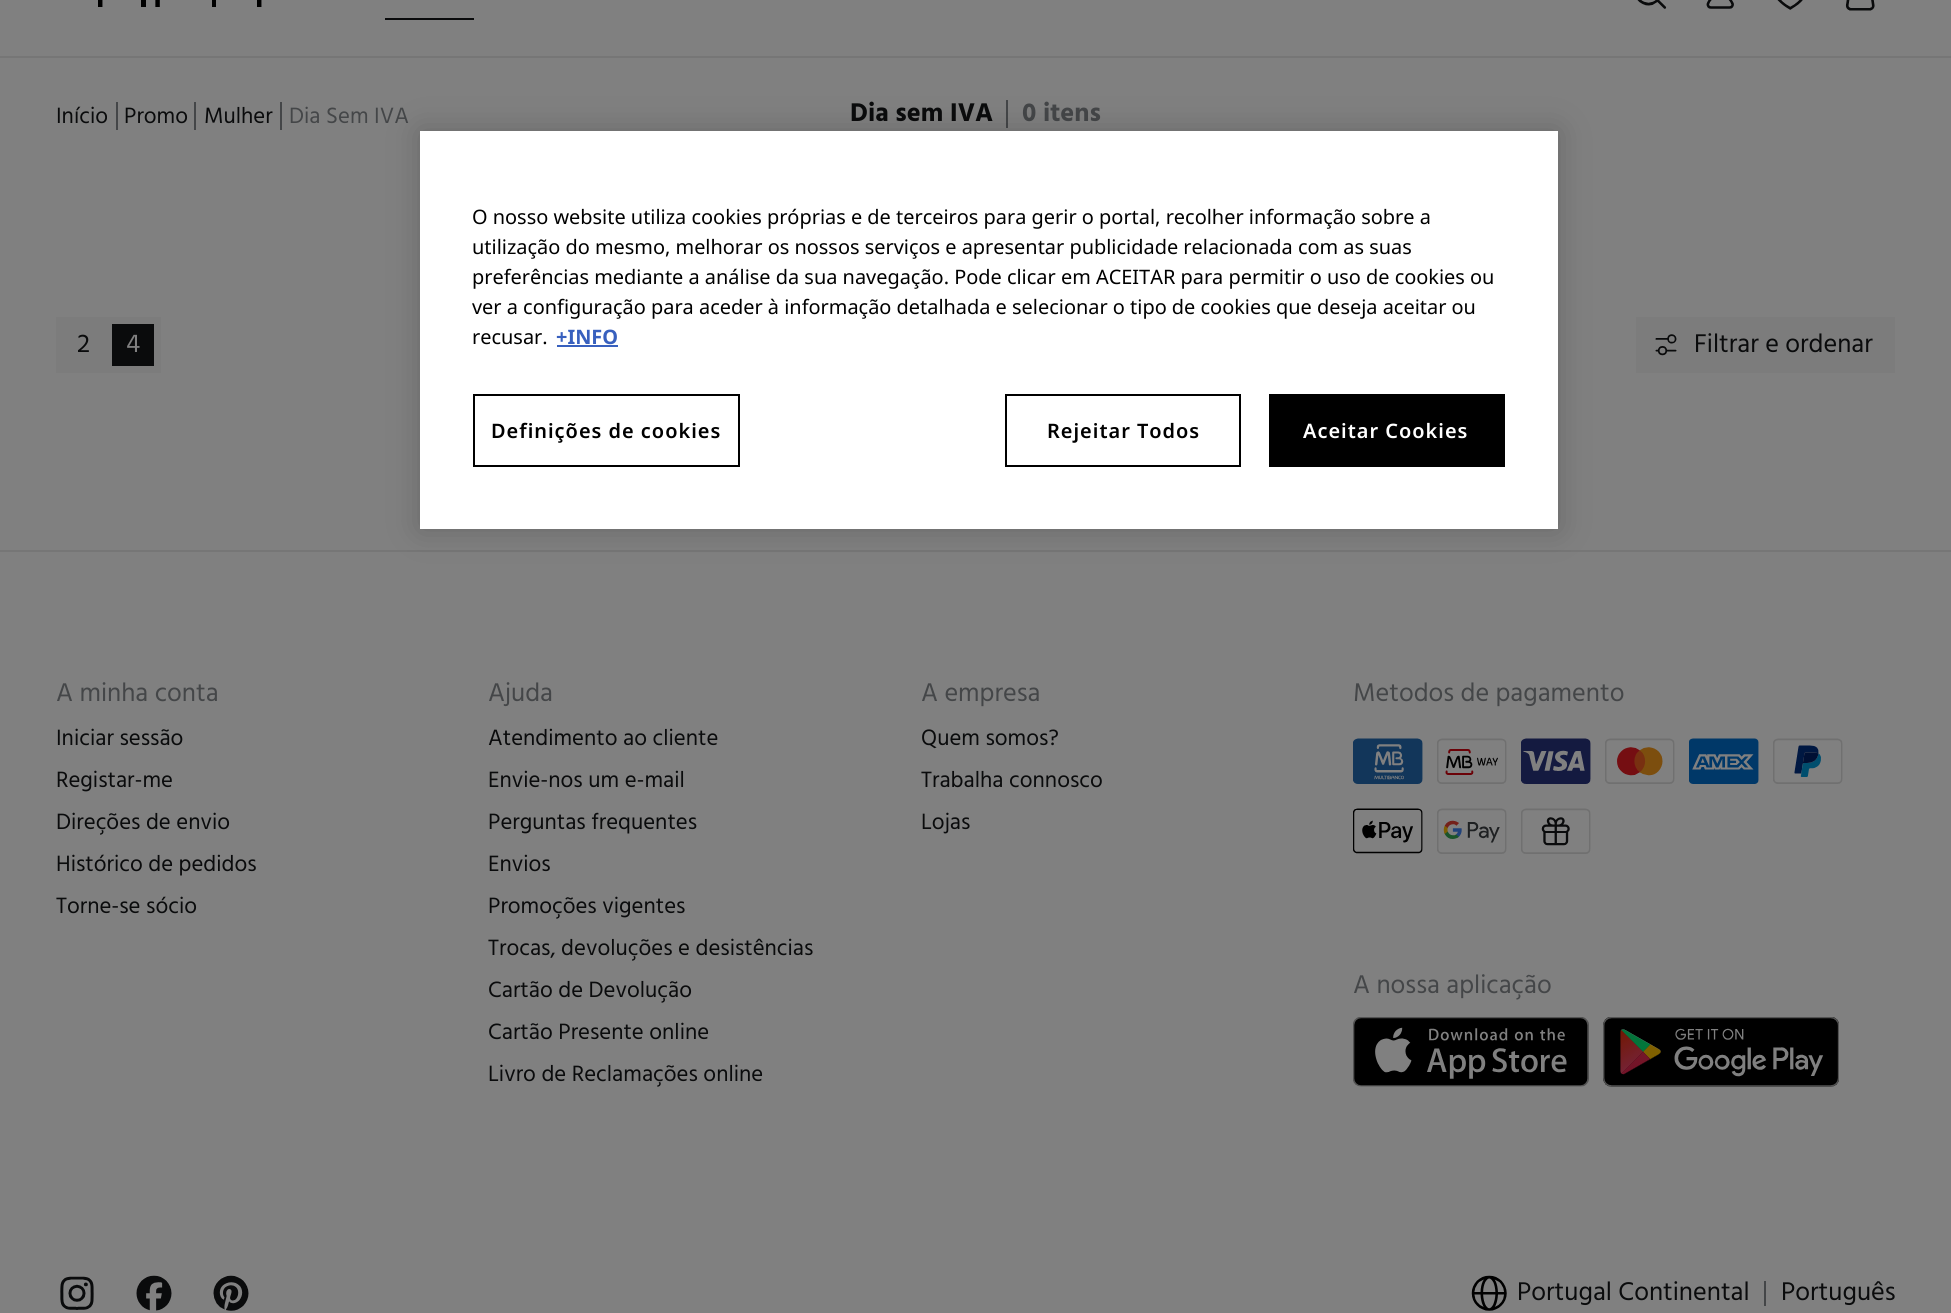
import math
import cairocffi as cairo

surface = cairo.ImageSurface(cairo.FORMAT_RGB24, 1951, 1313)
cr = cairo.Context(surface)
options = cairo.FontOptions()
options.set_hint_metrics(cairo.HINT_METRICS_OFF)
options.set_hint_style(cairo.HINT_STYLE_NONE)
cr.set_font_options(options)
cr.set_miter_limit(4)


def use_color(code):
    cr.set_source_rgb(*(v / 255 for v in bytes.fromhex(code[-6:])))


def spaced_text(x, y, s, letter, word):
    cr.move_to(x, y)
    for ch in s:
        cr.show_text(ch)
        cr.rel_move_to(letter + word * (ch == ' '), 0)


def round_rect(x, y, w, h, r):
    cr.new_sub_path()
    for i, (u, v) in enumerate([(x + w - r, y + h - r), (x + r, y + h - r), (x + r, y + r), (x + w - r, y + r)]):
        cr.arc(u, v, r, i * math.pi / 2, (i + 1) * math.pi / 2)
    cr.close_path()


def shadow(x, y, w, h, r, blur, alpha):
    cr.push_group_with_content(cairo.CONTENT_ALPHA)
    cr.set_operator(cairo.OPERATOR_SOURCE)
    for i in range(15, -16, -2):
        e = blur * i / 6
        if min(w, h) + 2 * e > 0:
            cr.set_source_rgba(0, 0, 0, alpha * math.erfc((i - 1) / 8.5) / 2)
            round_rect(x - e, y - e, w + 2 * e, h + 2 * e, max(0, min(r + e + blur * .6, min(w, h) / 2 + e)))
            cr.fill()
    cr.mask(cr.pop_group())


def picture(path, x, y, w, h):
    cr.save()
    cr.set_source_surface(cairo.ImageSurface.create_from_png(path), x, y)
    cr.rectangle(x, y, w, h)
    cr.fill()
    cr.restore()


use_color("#808080")
cr.paint()
use_color("#767676")
cr.rectangle(0, 56, 1951, 2)
cr.fill()
picture("img1.png", 98, 0, 164, 7)
picture("img2.png", 1637, 0, 30, 9)
picture("img3.png", 1706, 0, 28, 9)
picture("img4.png", 1777, 0, 26, 10)
picture("img5.png", 1845, 0, 30, 11)
use_color("#0a0b0c")
cr.rectangle(385, 18, 89, 2)
cr.fill()
cr.select_font_face("Hind")
cr.set_font_size(22.75)
cr.move_to(56, 123)
cr.show_text("Início")
use_color("#444648")
cr.rectangle(116, 102, 2, 28)
cr.fill()
use_color("#0a0b0c")
cr.move_to(124, 123)
cr.show_text("Promo")
use_color("#444648")
cr.rectangle(194, 102, 2, 28)
cr.fill()
use_color("#0a0b0c")
cr.move_to(204, 123)
cr.show_text("Mulher")
use_color("#444648")
cr.rectangle(280, 102, 2, 28)
cr.fill()
cr.move_to(289, 123)
cr.show_text("Dia Sem IVA")
cr.select_font_face("Hind", cairo.FONT_SLANT_NORMAL, cairo.FONT_WEIGHT_BOLD)
cr.set_font_size(26.25)
use_color("#0a0b0c")
cr.move_to(850, 121)
cr.show_text("Dia sem IVA")
use_color("#444648")
cr.rectangle(1006, 100, 2, 28)
cr.fill()
cr.move_to(1022, 121)
cr.show_text("0 itens")
use_color("#7c7c7c")
cr.rectangle(56, 317, 105, 56)
cr.fill()
cr.select_font_face("Hind")
use_color("#0a0b0c")
cr.move_to(77, 352)
cr.show_text("2")
cr.rectangle(112, 324, 42, 42)
cr.fill()
use_color("#808080")
cr.move_to(126, 352)
cr.show_text("4")
use_color("#7c7c7c")
cr.rectangle(1636, 317, 259, 56)
cr.fill()
picture("img6.png", 1655, 334, 22, 22)
use_color("#0a0b0c")
cr.move_to(1694, 352)
cr.show_text("Filtrar e ordenar")
use_color("#767676")
cr.rectangle(0, 550, 1951, 2)
cr.fill()
use_color("#444648")
cr.move_to(56, 701)
cr.show_text("A minha conta")
cr.set_font_size(22.75)
use_color("#0a0b0c")
cr.move_to(56, 745)
cr.show_text("Iniciar sessão")
cr.move_to(56, 787)
cr.show_text("Registar-me")
cr.move_to(56, 829)
cr.show_text("Direções de envio")
cr.move_to(56, 871)
cr.show_text("Histórico de pedidos")
cr.move_to(56, 913)
cr.show_text("Torne-se sócio")
cr.set_font_size(26.25)
use_color("#444648")
cr.move_to(488, 701)
cr.show_text("Ajuda")
cr.set_font_size(22.75)
use_color("#0a0b0c")
cr.move_to(488, 745)
cr.show_text("Atendimento ao cliente")
cr.move_to(488, 787)
cr.show_text("Envie-nos um e-mail")
cr.move_to(488, 829)
cr.show_text("Perguntas frequentes")
cr.move_to(488, 871)
cr.show_text("Envios")
cr.move_to(488, 913)
cr.show_text("Promoções vigentes")
cr.move_to(488, 955)
cr.show_text("Trocas, devoluções e desistências")
cr.move_to(488, 997)
cr.show_text("Cartão de Devolução")
cr.move_to(488, 1039)
cr.show_text("Cartão Presente online")
cr.move_to(488, 1081)
cr.show_text("Livro de Reclamações online")
cr.set_font_size(26.25)
use_color("#444648")
cr.move_to(921, 701)
cr.show_text("A empresa")
cr.set_font_size(22.75)
use_color("#0a0b0c")
cr.move_to(921, 745)
cr.show_text("Quem somos?")
cr.move_to(921, 787)
cr.show_text("Trabalha connosco")
cr.move_to(921, 829)
cr.show_text("Lojas")
cr.set_font_size(26.25)
use_color("#444648")
cr.move_to(1353, 701)
cr.show_text("Metodos de pagamento")
picture("img7.png", 1353, 738, 70, 46)
picture("img8.png", 1437, 738, 70, 46)
picture("img9.png", 1521, 738, 70, 46)
picture("img10.png", 1605, 738, 70, 46)
picture("img11.png", 1689, 738, 70, 46)
picture("img12.png", 1773, 738, 70, 46)
picture("img13.png", 1353, 808, 70, 46)
picture("img14.png", 1437, 808, 70, 46)
picture("img15.png", 1521, 808, 70, 46)
cr.move_to(1353, 993)
cr.show_text("A nossa aplicação")
picture("img16.png", 1353, 1017, 236, 70)
picture("img17.png", 1603, 1017, 236, 70)
picture("img18.png", 60, 1276, 34, 34)
picture("img19.png", 136, 1275, 36, 36)
picture("img20.png", 213, 1275, 36, 36)
picture("img21.png", 1471, 1275, 36, 36)
use_color("#0a0b0c")
cr.move_to(1517, 1300)
cr.show_text("Portugal Continental")
use_color("#444648")
cr.rectangle(1764, 1281, 2, 25)
cr.fill()
use_color("#0a0b0c")
cr.move_to(1781, 1300)
cr.show_text("Português")
use_color("#000000")
shadow(420, 131, 1138, 398, 0, 16, 0.2)
use_color("#ffffff")
cr.rectangle(420, 131, 1138, 398)
cr.fill()
cr.select_font_face("Noto Sans")
cr.set_font_size(19.92)
use_color("#000000")
cr.move_to(472, 224)
cr.show_text("O nosso website utiliza cookies próprias e de terceiros para gerir o portal, recolher informação sobre a")
cr.move_to(472, 254)
cr.show_text("utilização do mesmo, melhorar os nossos serviços e apresentar publicidade relacionada com as suas")
cr.move_to(472, 284)
cr.show_text("preferências mediante a análise da sua navegação. Pode clicar em ACEITAR para permitir o uso de cookies ou")
cr.move_to(472, 314)
cr.show_text("ver a configuração para aceder à informação detalhada e selecionar o tipo de cookies que deseja aceitar ou")
cr.move_to(472, 344)
cr.show_text("recusar.")
cr.select_font_face("Noto Sans", cairo.FONT_SLANT_NORMAL, cairo.FONT_WEIGHT_BOLD)
use_color("#3860be")
cr.move_to(556, 344)
cr.show_text("+INFO")
cr.rectangle(557, 345, 61, 2)
cr.fill()
cr.rectangle(474, 395, 265, 71)
use_color("#000000")
cr.stroke()
cr.select_font_face("Noto Sans SemiBold")
spaced_text(491, 438, "Definições de cookies", 1, 0)
cr.rectangle(1006, 395, 234, 71)
cr.stroke()
spaced_text(1047, 438, "Rejeitar Todos", 1, 0)
cr.rectangle(1269, 394, 236, 73)
cr.fill()
use_color("#ffffff")
spaced_text(1303, 438, "Aceitar Cookies", 1, 0)
surface.write_to_png("result.png")
